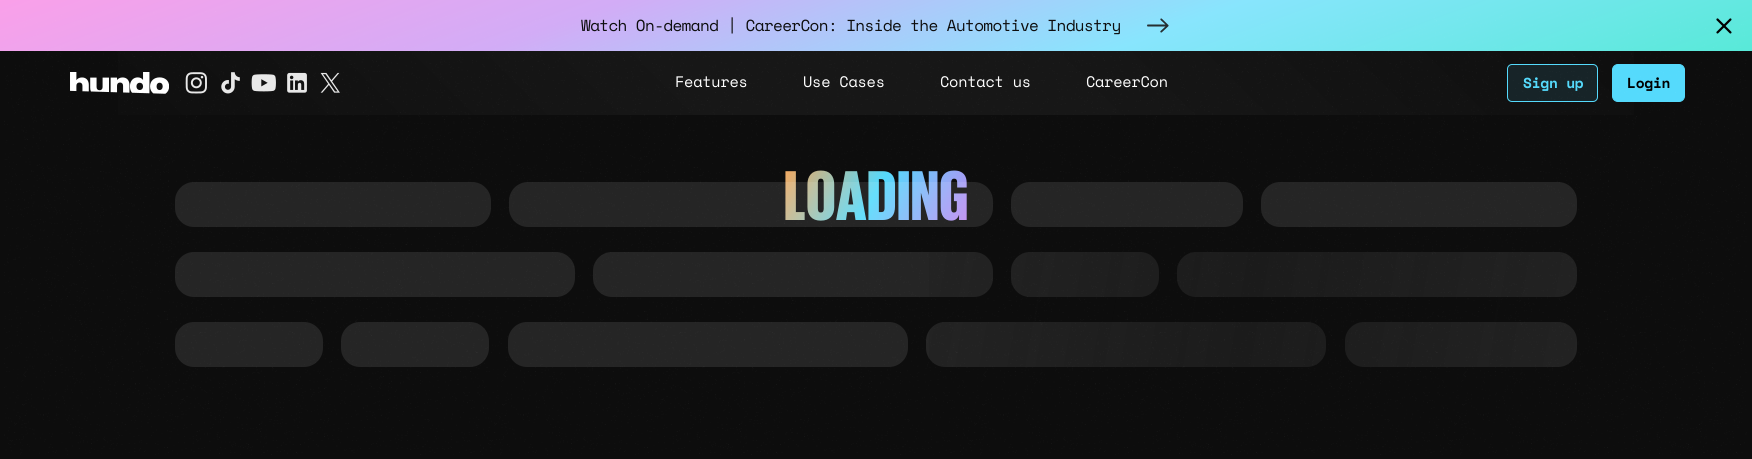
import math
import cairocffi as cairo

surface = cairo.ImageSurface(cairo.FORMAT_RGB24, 1752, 459)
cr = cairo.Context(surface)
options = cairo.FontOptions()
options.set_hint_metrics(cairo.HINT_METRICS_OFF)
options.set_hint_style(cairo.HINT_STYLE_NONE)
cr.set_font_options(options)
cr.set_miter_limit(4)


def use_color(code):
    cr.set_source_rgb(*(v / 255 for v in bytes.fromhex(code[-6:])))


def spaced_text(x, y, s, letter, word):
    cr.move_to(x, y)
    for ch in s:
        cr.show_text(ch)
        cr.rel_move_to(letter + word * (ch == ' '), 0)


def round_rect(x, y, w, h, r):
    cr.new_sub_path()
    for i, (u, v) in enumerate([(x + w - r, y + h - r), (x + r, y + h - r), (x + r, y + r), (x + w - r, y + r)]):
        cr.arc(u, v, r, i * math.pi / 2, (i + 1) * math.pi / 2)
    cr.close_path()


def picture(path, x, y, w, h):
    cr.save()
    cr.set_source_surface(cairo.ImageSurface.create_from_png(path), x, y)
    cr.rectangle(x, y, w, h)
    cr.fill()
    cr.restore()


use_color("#0d0d0d")
cr.paint()
gradient = cairo.LinearGradient(765, -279, 987, 330)
gradient.add_color_stop_rgba(0, 0.98, 0.627, 0.914, 1)
gradient.add_color_stop_rgba(0.33, 0.824, 0.675, 0.965, 1)
gradient.add_color_stop_rgba(0.66, 0.533, 0.898, 0.992, 1)
gradient.add_color_stop_rgba(1, 0.345, 0.914, 0.847, 1)
cr.set_source(gradient)
cr.rectangle(0, 0, 1752, 51)
cr.fill()
cr.select_font_face("Space Mono")
cr.set_font_size(16)
use_color("#0d0d0d")
spaced_text(581, 31, "Watch On-demand | CareerCon: Inside the Automotive Industry", -0.65, 0)
picture("img2.png", 1147, 18, 22, 15)
picture("img3.png", 1716, 18, 16, 16)
gradient = cairo.LinearGradient(422, 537, 1330, -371)
gradient.add_color_stop_rgba(0, 0.051, 0.051, 0.051, 1)
gradient.add_color_stop_rgba(0.4, 0.09, 0.09, 0.09, 1)
gradient.add_color_stop_rgba(0.6, 0.09, 0.09, 0.09, 1)
gradient.add_color_stop_rgba(1, 0.051, 0.051, 0.051, 1)
cr.set_source(gradient)
cr.rectangle(118, 51, 1516, 64)
cr.fill()
picture("img4.png", 70, 72, 99, 22)
picture("img5.png", 185, 72, 22, 22)
picture("img6.png", 221, 72, 19, 22)
picture("img7.png", 251, 74, 25, 18)
picture("img8.png", 287, 72, 20, 21)
picture("img9.png", 320, 72, 20, 21)
cr.set_font_size(15.25)
use_color("#ffffff")
spaced_text(675, 87, "Features", -0.25, 0)
spaced_text(803, 87, "Use Cases", -0.25, 0)
spaced_text(940, 87, "Contact us", -0.25, 0)
spaced_text(1086, 87, "CareerCon", -0.25, 0)
use_color("#172428")
round_rect(1507.5, 64.5, 90, 37, 4.5)
cr.fill_preserve()
use_color("#55dafc")
cr.set_line_width(1)
cr.stroke()
cr.select_font_face("Space Mono", cairo.FONT_SLANT_NORMAL, cairo.FONT_WEIGHT_BOLD)
cr.set_font_size(14.5)
spaced_text(1523, 88, "Sign up", -0.25, 0)
round_rect(1612.5, 64.5, 72, 37, 5.5)
cr.fill_preserve()
cr.stroke()
use_color("#000000")
spaced_text(1627, 88, "Login", -0.25, 0)
cr.select_font_face("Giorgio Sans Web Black")
cr.set_font_size(72)
gradient = cairo.LinearGradient(794, 145, 958, 240)
gradient.add_color_stop_rgba(0, 0.976, 0.651, 0.349, 1)
gradient.add_color_stop_rgba(0.5, 0.333, 0.855, 0.988, 1)
gradient.add_color_stop_rgba(1, 0.749, 0.533, 0.949, 1)
cr.set_source(gradient)
spaced_text(784, 220, "LOADING", 0.5, 0)
use_color("#252525")
round_rect(175, 182, 316, 45, 19)
cr.fill()
cr.set_source_rgba(1, 1, 1, 0.1)
round_rect(509, 182, 484, 45, 19)
cr.fill()
use_color("#252525")
round_rect(1011, 182, 232, 45, 19)
cr.fill()
round_rect(1261, 182, 316, 45, 19)
cr.fill()
round_rect(175, 252, 400, 45, 19)
cr.fill()
round_rect(593, 252, 400, 45, 19)
cr.fill()
round_rect(1011, 252, 148, 45, 19)
cr.fill()
round_rect(1177, 252, 400, 45, 19)
cr.fill()
round_rect(926, 322, 400, 45, 19)
cr.fill()
round_rect(1345, 322, 232, 45, 19)
cr.fill()
gradient = cairo.LinearGradient(418, 166, 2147, 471)
gradient.add_color_stop_rgba(0.25, 0.051, 0.051, 0.051, 0)
gradient.add_color_stop_rgba(0.48, 0.051, 0.051, 0.051, 0.4)
gradient.add_color_stop_rgba(0.75, 0.051, 0.051, 0.051, 0)
cr.set_source(gradient)
cr.rectangle(929, 252, 648, 115)
cr.fill()
use_color("#252525")
round_rect(175, 322, 148, 45, 19)
cr.fill()
round_rect(341, 322, 148, 45, 19)
cr.fill()
round_rect(508, 322, 400, 45, 19)
cr.fill()
picture("img1.png", 4, 11, 1743, 444)
surface.write_to_png("result.png")
